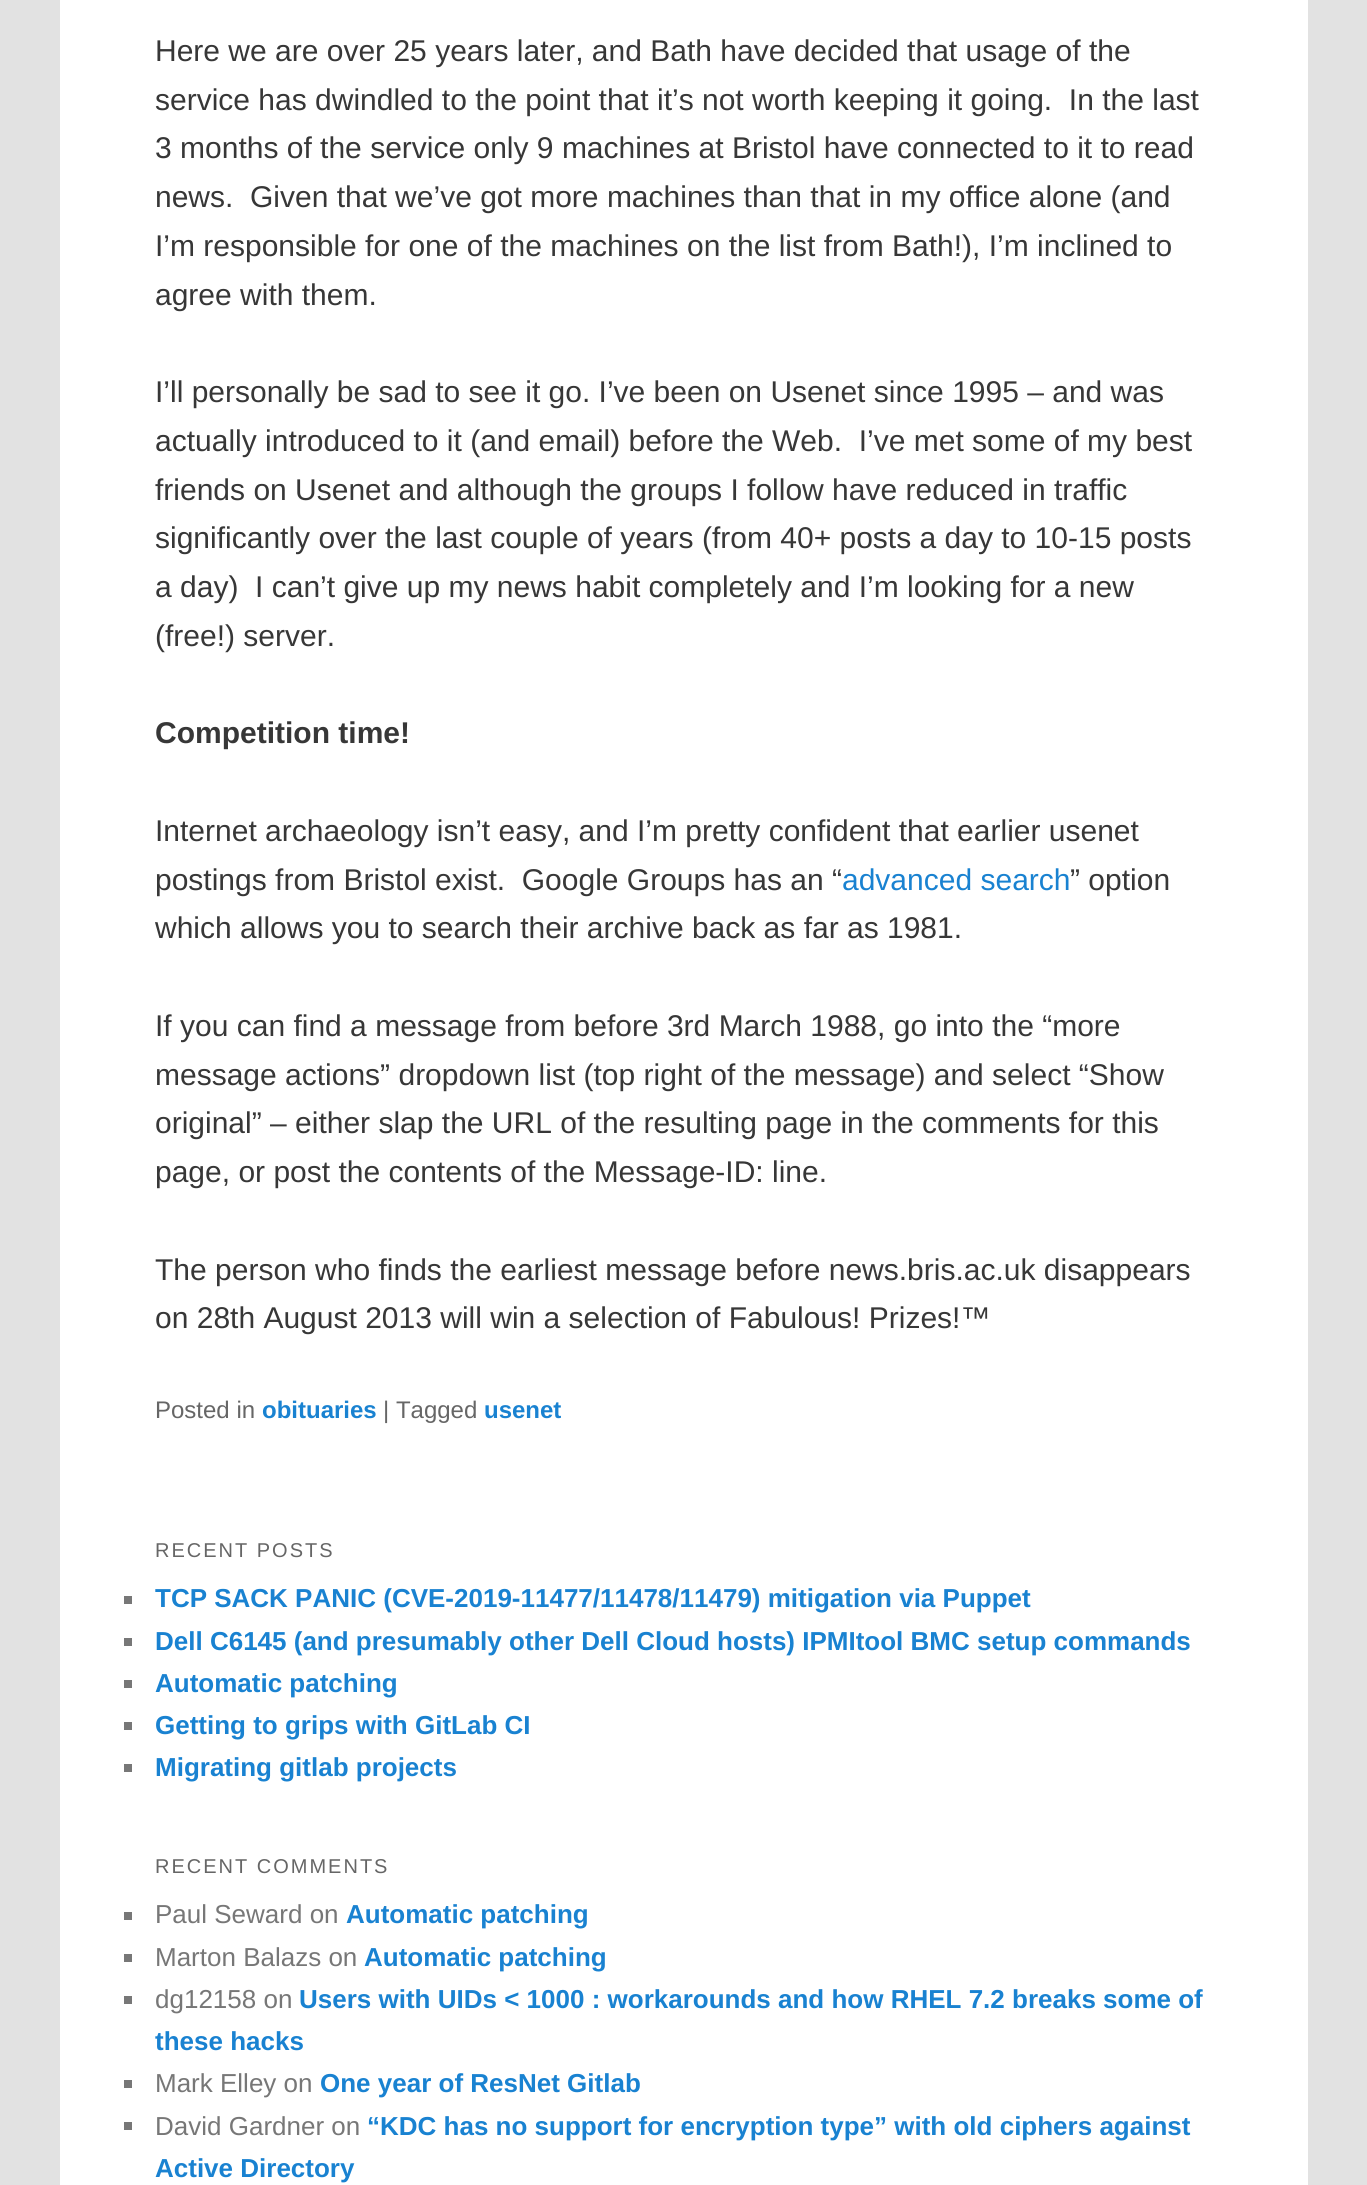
import math
import cairocffi as cairo

surface = cairo.ImageSurface(cairo.FORMAT_RGB24, 1367, 2185)
cr = cairo.Context(surface)
options = cairo.FontOptions()
options.set_hint_metrics(cairo.HINT_METRICS_OFF)
options.set_hint_style(cairo.HINT_STYLE_NONE)
cr.set_font_options(options)
cr.set_miter_limit(4)


def use_color(code):
    cr.set_source_rgb(*(v / 255 for v in bytes.fromhex(code[-6:])))


def spaced_text(x, y, s, letter, word):
    cr.move_to(x, y)
    for ch in s:
        cr.show_text(ch)
        cr.rel_move_to(letter + word * (ch == ' '), 0)


use_color("#e2e2e2")
cr.paint()
use_color("#ffffff")
cr.rectangle(60, 0, 1248, 2185)
cr.fill()
cr.select_font_face("Liberation Sans")
cr.set_font_size(30)
use_color("#373737")
cr.move_to(155, 61)
cr.show_text("Here we are over 25 years later, and Bath have decided that usage of the")
cr.move_to(155, 110)
cr.show_text("service has dwindled to the point that it’s not worth keeping it going.  In the last")
cr.move_to(155, 158)
cr.show_text("3 months of the service only 9 machines at Bristol have connected to it to read")
cr.move_to(155, 207)
cr.show_text("news.  Given that we’ve got more machines than that in my office alone (and")
cr.move_to(155, 256)
cr.show_text("I’m responsible for one of the machines on the list from Bath!), I’m inclined to")
cr.move_to(155, 305)
cr.show_text("agree with them.")
cr.move_to(155, 402)
cr.show_text("I’ll personally be sad to see it go. I’ve been on Usenet since 1995 – and was")
cr.move_to(155, 451)
cr.show_text("actually introduced to it (and email) before the Web.  I’ve met some of my best")
cr.move_to(155, 500)
cr.show_text("friends on Usenet and although the groups I follow have reduced in traffic")
cr.move_to(155, 548)
cr.show_text("significantly over the last couple of years (from 40+ posts a day to 10-15 posts")
cr.move_to(155, 597)
cr.show_text("a day)  I can’t give up my news habit completely and I’m looking for a new")
cr.move_to(155, 646)
cr.show_text("(free!) server.")
cr.select_font_face("Liberation Sans", cairo.FONT_SLANT_NORMAL, cairo.FONT_WEIGHT_BOLD)
cr.move_to(155, 743)
cr.show_text("Competition time!")
cr.select_font_face("Liberation Sans")
cr.move_to(155, 841)
cr.show_text("Internet archaeology isn’t easy, and I’m pretty confident that earlier usenet")
cr.move_to(155, 890)
cr.show_text("postings from Bristol exist.  Google Groups has an “")
use_color("#1982d1")
cr.move_to(842, 890)
cr.show_text("advanced search")
use_color("#373737")
cr.move_to(1070, 890)
cr.show_text("” option")
cr.move_to(155, 938)
cr.show_text("which allows you to search their archive back as far as 1981.")
cr.move_to(155, 1036)
cr.show_text("If you can find a message from before 3rd March 1988, go into the “more")
cr.move_to(155, 1085)
cr.show_text("message actions” dropdown list (top right of the message) and select “Show")
cr.move_to(155, 1133)
cr.show_text("original” – either slap the URL of the resulting page in the comments for this")
cr.move_to(155, 1182)
cr.show_text("page, or post the contents of the Message-ID: line.")
cr.move_to(155, 1280)
cr.show_text("The person who finds the earliest message before news.bris.ac.uk disappears")
cr.move_to(155, 1328)
cr.show_text("on 28th August 2013 will win a selection of Fabulous! Prizes!™")
cr.set_font_size(24)
use_color("#666666")
cr.move_to(155, 1418)
cr.show_text("Posted in")
cr.select_font_face("Liberation Sans", cairo.FONT_SLANT_NORMAL, cairo.FONT_WEIGHT_BOLD)
use_color("#1982d1")
cr.move_to(262, 1418)
cr.show_text("obituaries")
cr.select_font_face("Liberation Sans")
use_color("#666666")
cr.move_to(383, 1418)
cr.show_text("| Tagged")
cr.select_font_face("Liberation Sans", cairo.FONT_SLANT_NORMAL, cairo.FONT_WEIGHT_BOLD)
use_color("#1982d1")
cr.move_to(484, 1418)
cr.show_text("usenet")
cr.select_font_face("Liberation Sans")
cr.set_font_size(20)
use_color("#666666")
spaced_text(155, 1557, "RECENT POSTS", 2, 0)
use_color("#777777")
cr.rectangle(124, 1596, 8, 8)
cr.fill()
cr.select_font_face("Liberation Sans", cairo.FONT_SLANT_NORMAL, cairo.FONT_WEIGHT_BOLD)
cr.set_font_size(26)
use_color("#1982d1")
cr.move_to(155, 1607)
cr.show_text("TCP SACK PANIC (CVE-2019-11477/11478/11479) mitigation via Puppet")
use_color("#777777")
cr.rectangle(124, 1638, 8, 8)
cr.fill()
use_color("#1982d1")
cr.move_to(155, 1650)
cr.show_text("Dell C6145 (and presumably other Dell Cloud hosts) IPMItool BMC setup commands")
use_color("#777777")
cr.rectangle(124, 1680, 8, 8)
cr.fill()
use_color("#1982d1")
cr.move_to(155, 1692)
cr.show_text("Automatic patching")
use_color("#777777")
cr.rectangle(124, 1722, 8, 8)
cr.fill()
use_color("#1982d1")
cr.move_to(155, 1734)
cr.show_text("Getting to grips with GitLab CI")
use_color("#777777")
cr.rectangle(124, 1764, 8, 8)
cr.fill()
use_color("#1982d1")
cr.move_to(155, 1776)
cr.show_text("Migrating gitlab projects")
cr.select_font_face("Liberation Sans")
cr.set_font_size(20)
use_color("#666666")
spaced_text(155, 1873, "RECENT COMMENTS", 2, 0)
use_color("#777777")
cr.rectangle(124, 1912, 8, 8)
cr.fill()
cr.set_font_size(26)
cr.move_to(155, 1923)
cr.show_text("Paul Seward on")
cr.select_font_face("Liberation Sans", cairo.FONT_SLANT_NORMAL, cairo.FONT_WEIGHT_BOLD)
use_color("#1982d1")
cr.move_to(346, 1923)
cr.show_text("Automatic patching")
use_color("#777777")
cr.rectangle(124, 1954, 8, 8)
cr.fill()
cr.select_font_face("Liberation Sans")
cr.move_to(155, 1966)
cr.show_text("Marton Balazs on")
cr.select_font_face("Liberation Sans", cairo.FONT_SLANT_NORMAL, cairo.FONT_WEIGHT_BOLD)
use_color("#1982d1")
cr.move_to(364, 1966)
cr.show_text("Automatic patching")
use_color("#777777")
cr.rectangle(124, 1996, 8, 8)
cr.fill()
cr.select_font_face("Liberation Sans")
cr.move_to(155, 2008)
cr.show_text("dg12158 on")
cr.select_font_face("Liberation Sans", cairo.FONT_SLANT_NORMAL, cairo.FONT_WEIGHT_BOLD)
use_color("#1982d1")
cr.move_to(299, 2008)
cr.show_text("Users with UIDs < 1000 : workarounds and how RHEL 7.2 breaks some of")
cr.move_to(155, 2050)
cr.show_text("these hacks")
use_color("#777777")
cr.rectangle(124, 2080, 8, 8)
cr.fill()
cr.select_font_face("Liberation Sans")
cr.move_to(155, 2092)
cr.show_text("Mark Elley on")
cr.select_font_face("Liberation Sans", cairo.FONT_SLANT_NORMAL, cairo.FONT_WEIGHT_BOLD)
use_color("#1982d1")
cr.move_to(320, 2092)
cr.show_text("One year of ResNet Gitlab")
use_color("#777777")
cr.rectangle(124, 2122, 8, 8)
cr.fill()
cr.select_font_face("Liberation Sans")
cr.move_to(155, 2135)
cr.show_text("David Gardner on")
cr.select_font_face("Liberation Sans", cairo.FONT_SLANT_NORMAL, cairo.FONT_WEIGHT_BOLD)
use_color("#1982d1")
cr.move_to(367, 2135)
cr.show_text("“KDC has no support for encryption type” with old ciphers against")
cr.move_to(155, 2177)
cr.show_text("Active Directory")
surface.write_to_png("result.png")
